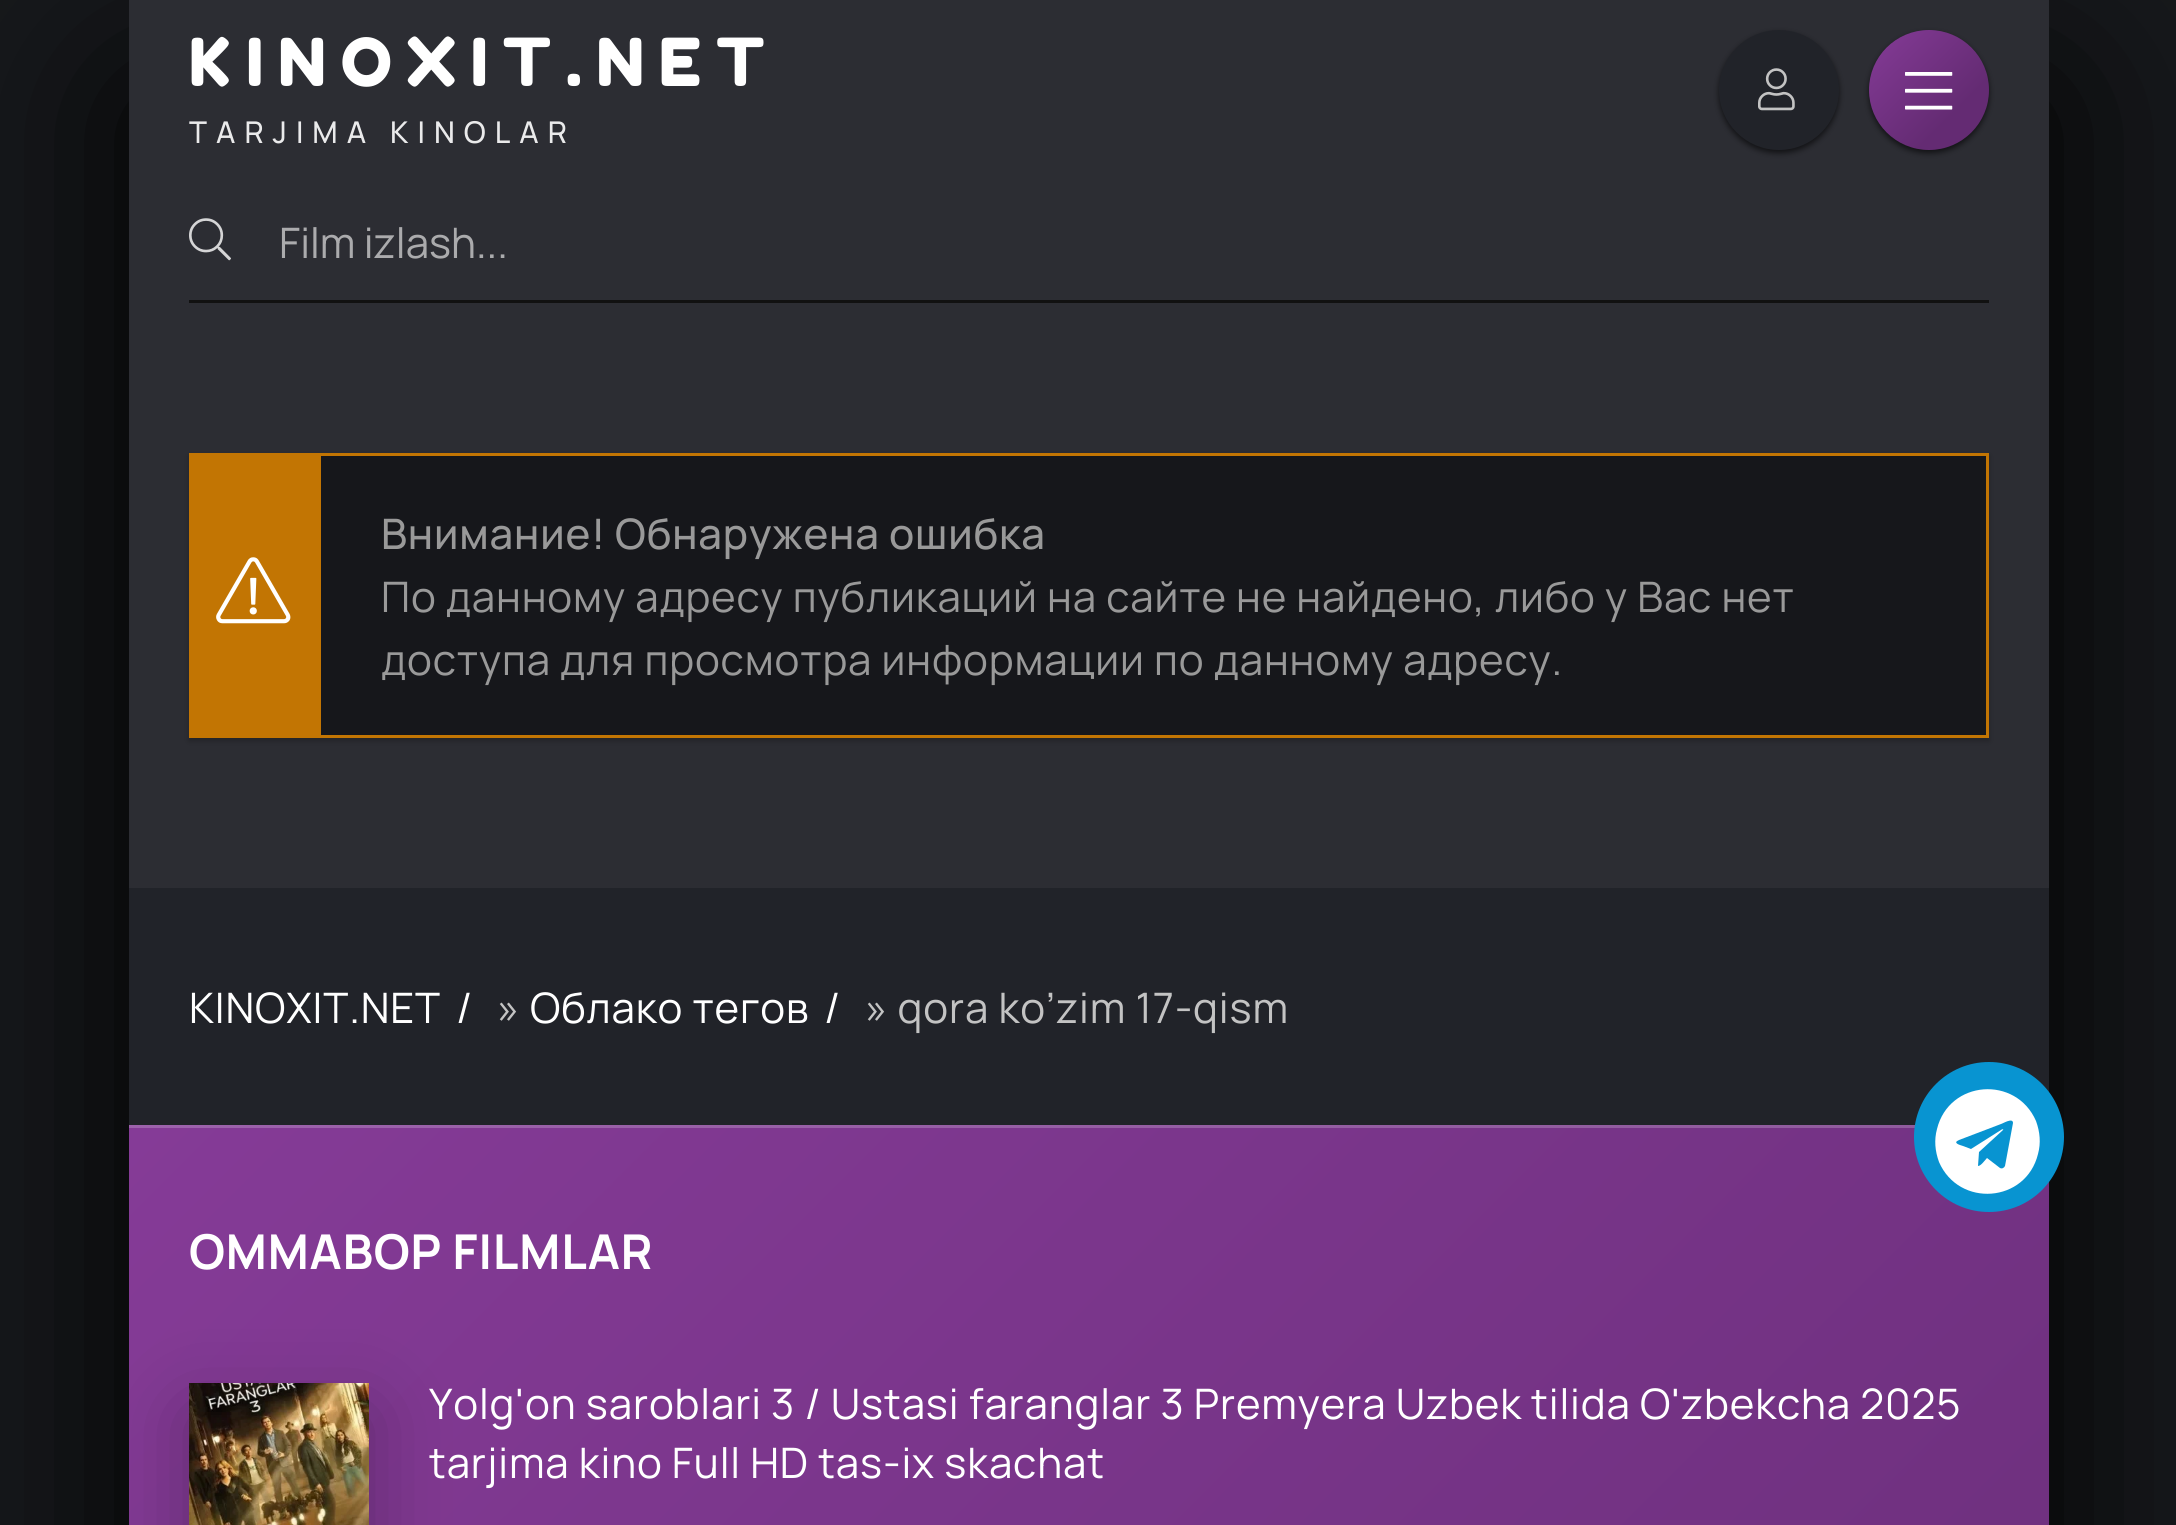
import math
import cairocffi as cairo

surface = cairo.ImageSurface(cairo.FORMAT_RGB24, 2176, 1525)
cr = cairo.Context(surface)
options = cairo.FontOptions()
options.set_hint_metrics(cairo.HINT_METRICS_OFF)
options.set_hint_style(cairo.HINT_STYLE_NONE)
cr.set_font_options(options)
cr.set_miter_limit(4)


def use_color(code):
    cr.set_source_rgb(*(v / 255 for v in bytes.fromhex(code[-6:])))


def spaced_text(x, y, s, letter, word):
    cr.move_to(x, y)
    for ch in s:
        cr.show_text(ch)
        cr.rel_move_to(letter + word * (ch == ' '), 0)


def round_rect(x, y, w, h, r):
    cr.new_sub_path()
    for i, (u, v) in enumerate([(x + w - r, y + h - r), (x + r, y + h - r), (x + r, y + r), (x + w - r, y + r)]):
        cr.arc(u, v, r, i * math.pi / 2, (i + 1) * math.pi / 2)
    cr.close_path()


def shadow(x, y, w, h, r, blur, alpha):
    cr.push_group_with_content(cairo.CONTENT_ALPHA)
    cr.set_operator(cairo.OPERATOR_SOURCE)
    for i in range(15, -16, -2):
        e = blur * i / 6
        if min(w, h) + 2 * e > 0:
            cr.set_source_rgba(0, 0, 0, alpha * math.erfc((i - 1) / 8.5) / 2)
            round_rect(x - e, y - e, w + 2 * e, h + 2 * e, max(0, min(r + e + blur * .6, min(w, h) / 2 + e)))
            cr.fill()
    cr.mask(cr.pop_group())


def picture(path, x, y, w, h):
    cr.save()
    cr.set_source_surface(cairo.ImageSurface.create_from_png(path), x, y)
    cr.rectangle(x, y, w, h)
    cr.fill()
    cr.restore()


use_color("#16181b")
cr.paint()
use_color("#000000")
shadow(129, 90, 1920, 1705, 0, 90, 1)
use_color("#2c2d33")
cr.rectangle(129, 0, 1920, 888)
cr.fill()
cr.select_font_face("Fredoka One")
cr.set_font_size(66)
use_color("#ffffff")
spaced_text(189, 86, "KINOXIT.NET", 15, 0)
cr.select_font_face("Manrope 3 ExtraLight")
cr.set_font_size(30)
use_color("#eaeaeb")
spaced_text(189, 143, "TARJIMA KINOLAR", 9, 0)
use_color("#000000")
shadow(1719, 33, 120, 120, 60, 3, 0.62)
use_color("#212329")
cr.arc(1779, 90, 60, 0, 2 * math.pi)
cr.fill()
picture("img1.png", 1758, 68, 37, 43)
use_color("#000000")
shadow(1869, 33, 120, 120, 60, 3, 0.62)
gradient = cairo.LinearGradient(1869, 30, 1989, 150)
gradient.add_color_stop_rgba(0, 0.522, 0.231, 0.592, 1)
gradient.add_color_stop_rgba(0.7, 0.392, 0.169, 0.451, 1)
gradient.add_color_stop_rgba(1, 0.392, 0.169, 0.451, 1)
cr.set_source(gradient)
cr.arc(1929, 90, 60, 0, 2 * math.pi)
cr.fill()
picture("img2.png", 1905, 72, 48, 38)
use_color("#111111")
cr.rectangle(189, 300, 1800, 3)
cr.fill()
picture("img3.png", 189, 218, 42, 43)
cr.select_font_face("Manrope ExtraLight")
cr.set_font_size(42)
use_color("#ababad")
cr.move_to(279, 258)
cr.show_text("Film izlash...")
use_color("#000000")
shadow(189, 456, 1800, 285, 0, 3, 0.24)
use_color("#16171b")
cr.rectangle(321, 456, 1665, 279)
cr.fill()
use_color("#c27503")
cr.rectangle(321, 453, 1668, 3)
cr.fill()
cr.rectangle(1986, 453, 3, 285)
cr.fill()
cr.rectangle(321, 735, 1668, 3)
cr.fill()
cr.rectangle(189, 453, 132, 285)
cr.fill()
cr.select_font_face("Manrope 3 ExtraLight")
use_color("#999999")
spaced_text(381, 549, "Внимание! Обнаружена ошибка", 0.85, 0)
picture("img4.png", 216, 557, 75, 67)
cr.select_font_face("Manrope ExtraLight")
spaced_text(381, 612, "По данному адресу публикаций на сайте не найдено, либо у Вас нет", 0.85, 0)
spaced_text(381, 675, "доступа для просмотра информации по данному адресу.", 0.85, 0)
use_color("#212329")
cr.rectangle(129, 888, 1920, 237)
cr.fill()
use_color("#ffffff")
spaced_text(189, 1023, "KINOXIT.NET", 0.85, 0)
spaced_text(456, 1023, "/", 0.85, 0)
use_color("#c3c3c3")
spaced_text(497, 1023, "»", 0.85, 0)
use_color("#ffffff")
spaced_text(530, 1023, "Облако тегов", 0.85, 0)
spaced_text(824, 1023, "/", 0.85, 0)
use_color("#c3c3c3")
spaced_text(865, 1023, "» qora ko’zim 17-qism", 0.85, 0)
gradient = cairo.LinearGradient(-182, 1436, 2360, 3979)
gradient.add_color_stop_rgba(0, 0.522, 0.231, 0.592, 1)
gradient.add_color_stop_rgba(0.7, 0.392, 0.169, 0.451, 1)
gradient.add_color_stop_rgba(1, 0.392, 0.169, 0.451, 1)
cr.set_source(gradient)
cr.rectangle(129, 1128, 1920, 397)
cr.fill()
gradient = cairo.LinearGradient(-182, 1436, 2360, 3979)
gradient.add_color_stop_rgba(0, 0.616, 0.384, 0.675, 1)
gradient.add_color_stop_rgba(0.7, 0.514, 0.333, 0.561, 1)
gradient.add_color_stop_rgba(1, 0.514, 0.333, 0.561, 1)
cr.set_source(gradient)
cr.rectangle(129, 1125, 1786, 3)
cr.fill()
cr.select_font_face("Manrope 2 ExtraLight")
cr.set_font_size(48)
use_color("#ffffff")
spaced_text(189, 1269, "OMMABOP FILMLAR", 0.85, 0)
use_color("#000000")
shadow(189, 1413, 180, 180, 0, 39, 0.25)
picture("img5.png", 189, 1383, 180, 142)
cr.select_font_face("Manrope ExtraLight")
cr.set_font_size(42)
use_color("#ffffff")
spaced_text(429, 1419, "Yolg'on saroblari 3 / Ustasi faranglar 3 Premyera Uzbek tilida O'zbekcha 2025", 0.85, 0)
spaced_text(429, 1478, "tarjima kino Full HD tas-ix skachat", 0.85, 0)
use_color("#0894d1")
cr.new_path()
cr.arc(1989, 1137, 75, 0, 2 * math.pi)
cr.fill()
use_color("#ffffff")
cr.new_path()
cr.move_to(2005, 1166)
cr.line_to(2013, 1123)
cr.curve_to(2013, 1117, 2002, 1124, 2001, 1124)
cr.line_to(1959, 1140)
cr.curve_to(1952, 1143, 1960, 1145, 1963, 1146)
cr.line_to(1971, 1149)
cr.line_to(2001, 1130)
cr.curve_to(2002, 1129, 2004, 1129, 2003, 1130)
cr.line_to(1979, 1152)
cr.line_to(1978, 1166)
cr.curve_to(1981, 1166, 1985, 1160, 1987, 1158)
cr.line_to(2000, 1168)
cr.curve_to(2002, 1169, 2004, 1168, 2005, 1166)
cr.close_path()
cr.move_to(2036, 1121)
cr.curve_to(2040, 1132, 2041, 1143, 2038, 1154)
cr.curve_to(2026, 1203, 1959, 1208, 1939, 1162)
cr.curve_to(1935, 1151, 1934, 1140, 1937, 1129)
cr.curve_to(1949, 1080, 2016, 1075, 2036, 1121)
cr.close_path()
cr.fill()
surface.write_to_png("result.png")
